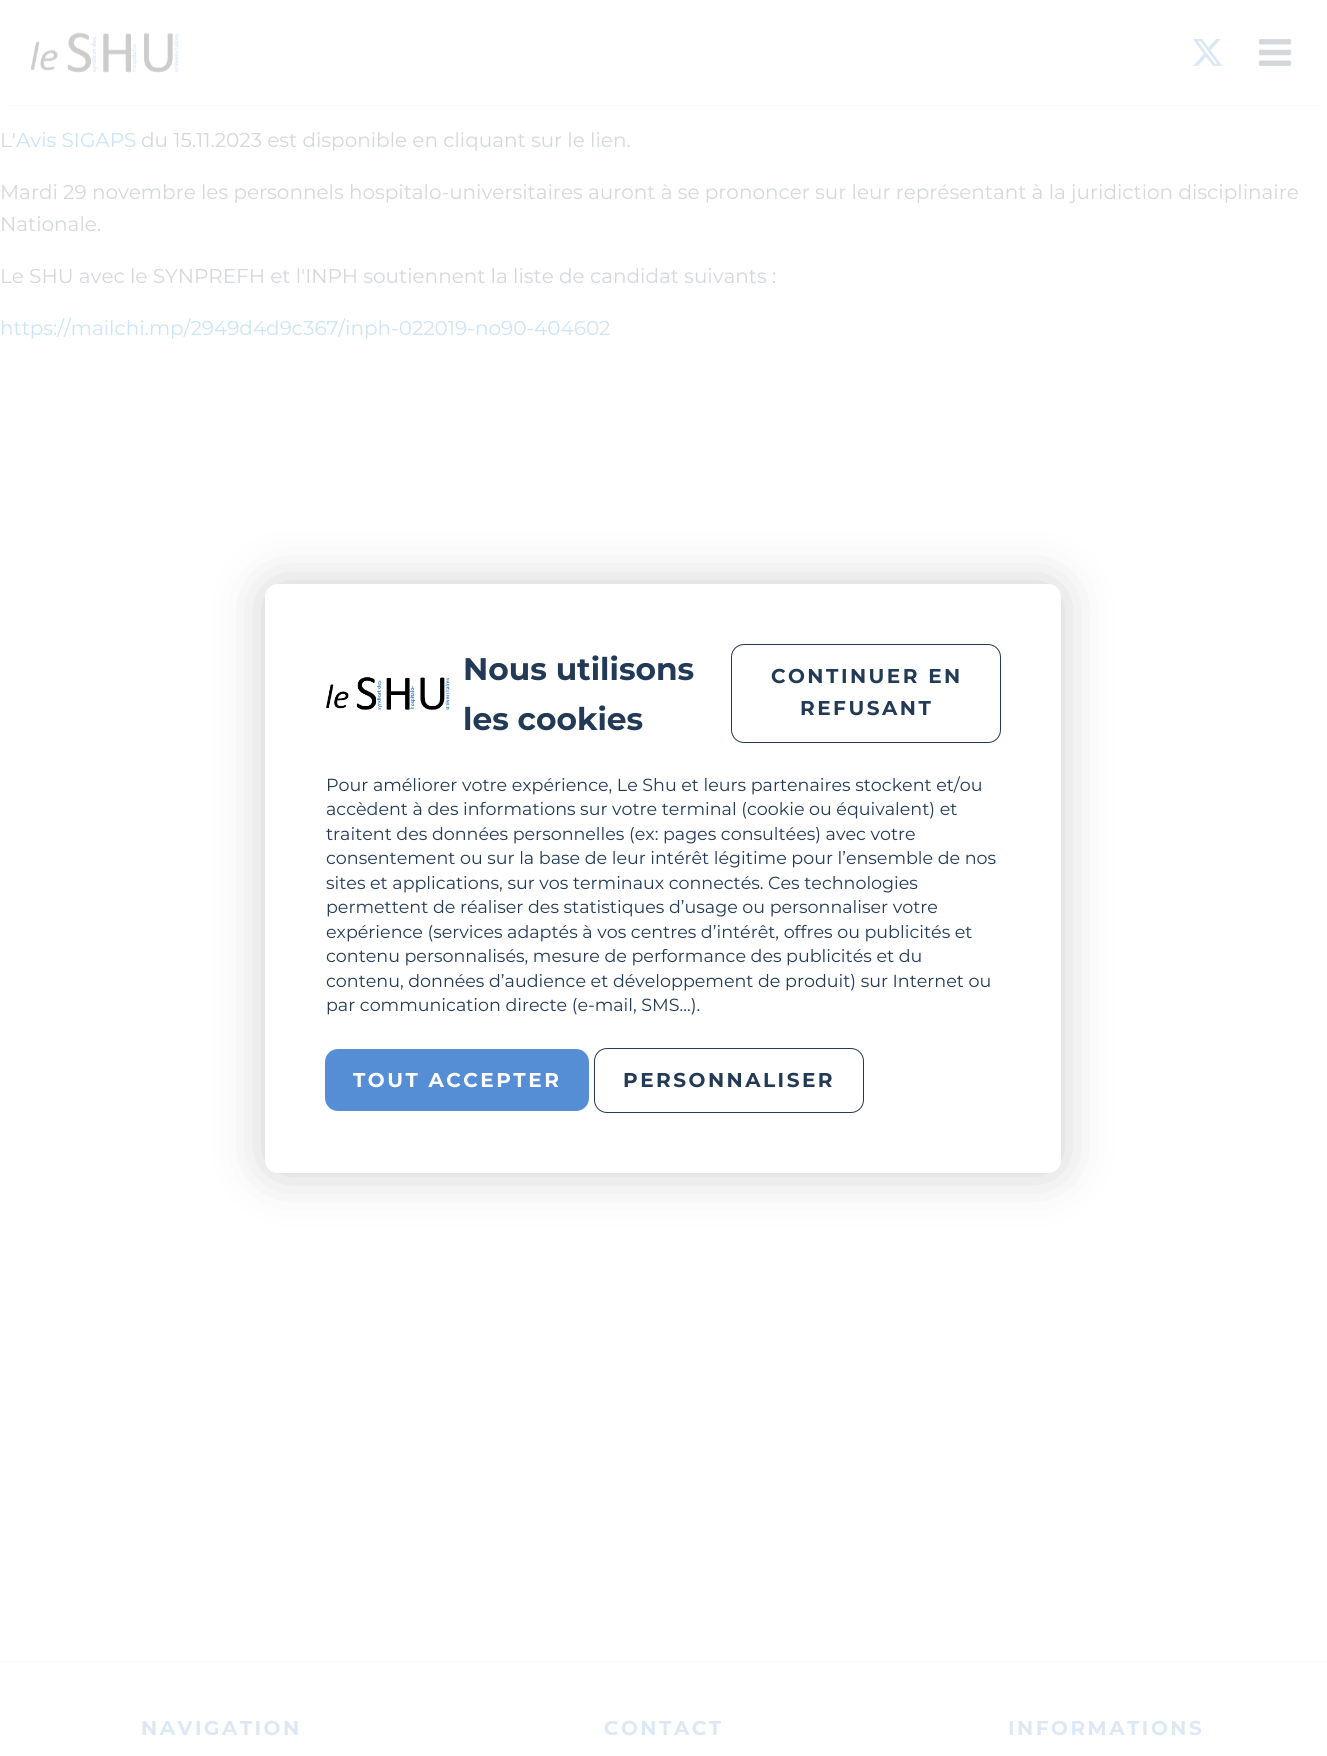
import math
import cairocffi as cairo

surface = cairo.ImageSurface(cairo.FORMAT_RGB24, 1327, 1756)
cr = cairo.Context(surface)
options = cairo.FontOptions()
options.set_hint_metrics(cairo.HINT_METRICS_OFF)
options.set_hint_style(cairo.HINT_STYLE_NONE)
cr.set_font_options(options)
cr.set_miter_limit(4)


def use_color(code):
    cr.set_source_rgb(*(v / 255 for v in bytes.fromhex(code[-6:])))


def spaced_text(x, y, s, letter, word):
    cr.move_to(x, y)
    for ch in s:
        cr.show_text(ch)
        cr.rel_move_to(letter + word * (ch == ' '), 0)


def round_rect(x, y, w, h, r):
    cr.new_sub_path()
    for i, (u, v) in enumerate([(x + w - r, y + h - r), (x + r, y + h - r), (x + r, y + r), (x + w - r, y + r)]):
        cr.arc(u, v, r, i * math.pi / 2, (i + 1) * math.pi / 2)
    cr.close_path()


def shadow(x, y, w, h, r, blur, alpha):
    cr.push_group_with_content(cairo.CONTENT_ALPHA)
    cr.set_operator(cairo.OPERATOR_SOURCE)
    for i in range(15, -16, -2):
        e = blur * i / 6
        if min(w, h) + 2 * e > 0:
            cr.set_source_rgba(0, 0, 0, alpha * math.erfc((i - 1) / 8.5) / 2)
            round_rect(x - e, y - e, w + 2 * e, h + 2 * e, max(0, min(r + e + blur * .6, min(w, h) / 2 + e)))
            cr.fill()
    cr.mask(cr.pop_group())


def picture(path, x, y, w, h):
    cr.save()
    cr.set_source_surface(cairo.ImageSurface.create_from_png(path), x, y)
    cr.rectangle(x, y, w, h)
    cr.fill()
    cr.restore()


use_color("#ffffff")
cr.paint()
use_color("#f8fafd")
cr.rectangle(6, 105, 1315, 1)
cr.fill()
picture("img1.png", 30, 32, 149, 41)
picture("img2.png", 1193, 39, 30, 27)
picture("img3.png", 1258, 39, 34, 27)
cr.select_font_face("Montserrat")
cr.set_font_size(20)
use_color("#d3d8dd")
cr.move_to(0, 147)
cr.show_text("L'")
use_color("#cce3f8")
cr.move_to(16, 147)
cr.show_text("Avis SIGAPS")
use_color("#d3d8dd")
cr.move_to(141, 147)
cr.show_text("du 15.11.2023 est disponible en cliquant sur le lien.")
cr.move_to(0, 199)
cr.show_text("Mardi 29 novembre les personnels hospitalo-universitaires auront à se prononcer sur leur représentant à la juridiction disciplinaire")
cr.move_to(0, 231)
cr.show_text("Nationale.")
cr.move_to(0, 283)
cr.show_text("Le SHU avec le SYNPREFH et l'INPH soutiennent la liste de candidat suivants :")
use_color("#cce3f8")
cr.move_to(0, 335)
cr.show_text("https://mailchi.mp/2949d4d9c367/inph-022019-no90-404602")
use_color("#000000")
shadow(265, 584, 796, 589, 13, 25, 0.2)
use_color("#ffffff")
round_rect(265, 584, 796, 589, 13)
cr.fill()
picture("img4.png", 326, 677, 124, 33)
cr.select_font_face("Montserrat", cairo.FONT_SLANT_NORMAL, cairo.FONT_WEIGHT_BOLD)
cr.set_font_size(31.25)
use_color("#233a57")
cr.move_to(463, 680)
cr.show_text("Nous utilisons")
cr.move_to(463, 730)
cr.show_text("les cookies")
round_rect(731.5, 644.5, 269, 98, 12.5)
cr.set_line_width(1)
cr.stroke()
cr.set_font_size(20)
spaced_text(771, 683, "CONTINUER EN", 2.5, 0)
spaced_text(800, 715, "REFUSANT", 2.5, 0)
cr.select_font_face("Montserrat")
cr.set_font_size(17.5)
cr.move_to(326, 791)
cr.show_text("Pour améliorer votre expérience, Le Shu et leurs partenaires stockent et/ou")
cr.move_to(326, 815)
cr.show_text("accèdent à des informations sur votre terminal (cookie ou équivalent) et")
cr.move_to(326, 840)
cr.show_text("traitent des données personnelles (ex: pages consultées) avec votre")
cr.move_to(326, 864)
cr.show_text("consentement ou sur la base de leur intérêt légitime pour l’ensemble de nos")
cr.move_to(326, 889)
cr.show_text("sites et applications, sur vos terminaux connectés. Ces technologies")
cr.move_to(326, 913)
cr.show_text("permettent de réaliser des statistiques d’usage ou personnaliser votre")
cr.move_to(326, 938)
cr.show_text("expérience (services adaptés à vos centres d’intérêt, offres ou publicités et")
cr.move_to(326, 962)
cr.show_text("contenu personnalisés, mesure de performance des publicités et du")
cr.move_to(326, 987)
cr.show_text("contenu, données d’audience et développement de produit) sur Internet ou")
cr.move_to(326, 1011)
cr.show_text("par communication directe (e-mail, SMS...).")
use_color("#558ed5")
round_rect(325, 1049, 264, 62, 13)
cr.fill()
cr.select_font_face("Montserrat", cairo.FONT_SLANT_NORMAL, cairo.FONT_WEIGHT_BOLD)
cr.set_font_size(20)
use_color("#ffffff")
spaced_text(353, 1087, "TOUT ACCEPTER", 2.5, 0)
round_rect(594.5, 1048.5, 269, 64, 12.5)
use_color("#243a57")
cr.stroke()
use_color("#233a57")
spaced_text(623, 1087, "PERSONNALISER", 2.5, 0)
use_color("#f8fafd")
cr.rectangle(0, 1661, 1327, 1)
cr.fill()
use_color("#dde8f7")
spaced_text(141, 1735, "NAVIGATION", 2.5, 0)
spaced_text(604, 1735, "CONTACT", 2.5, 0)
spaced_text(1008, 1735, "INFORMATIONS", 2.5, 0)
surface.write_to_png("result.png")
